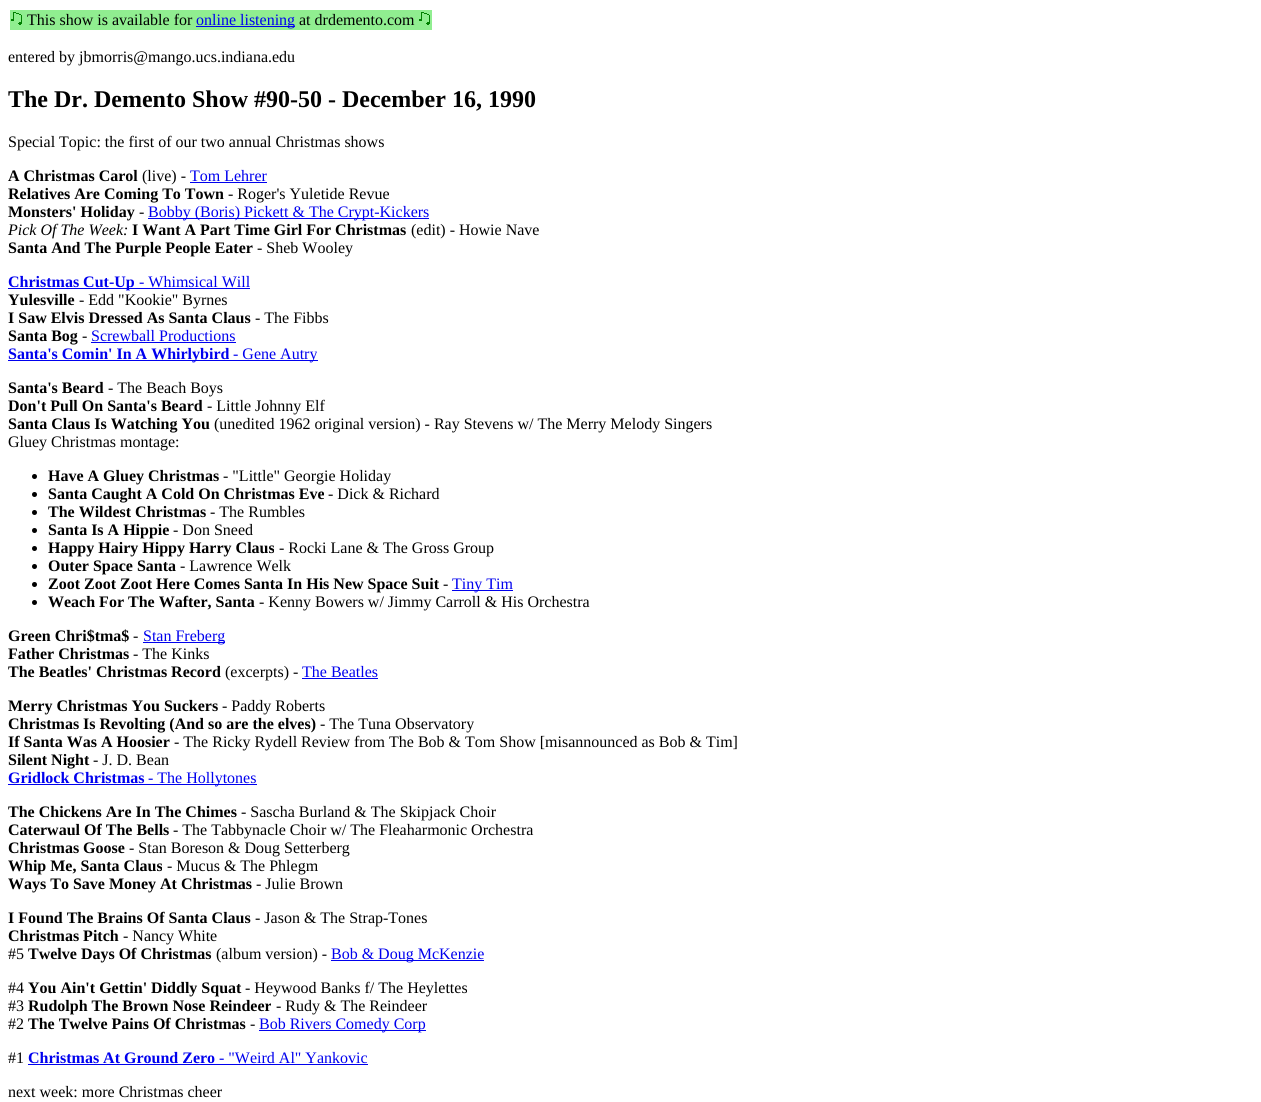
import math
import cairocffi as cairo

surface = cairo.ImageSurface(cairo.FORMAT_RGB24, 1261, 1102)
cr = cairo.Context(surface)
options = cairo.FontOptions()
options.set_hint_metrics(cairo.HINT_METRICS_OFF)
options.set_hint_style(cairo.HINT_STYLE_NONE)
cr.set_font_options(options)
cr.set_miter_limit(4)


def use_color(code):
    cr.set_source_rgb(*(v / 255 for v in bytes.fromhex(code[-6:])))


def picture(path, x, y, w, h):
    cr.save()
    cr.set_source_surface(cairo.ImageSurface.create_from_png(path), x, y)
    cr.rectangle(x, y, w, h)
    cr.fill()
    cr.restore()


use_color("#ffffff")
cr.paint()
use_color("#90ee90")
cr.rectangle(10, 10, 422, 20)
cr.fill()
picture("img1.png", 11, 12, 11, 13)
cr.select_font_face("Liberation Serif")
cr.set_font_size(16)
use_color("#000000")
cr.move_to(27, 25)
cr.show_text("This show is available for")
use_color("#0000ee")
cr.rectangle(196, 26, 99, 1)
cr.fill()
cr.move_to(196, 25)
cr.show_text("online listening")
use_color("#000000")
cr.move_to(299, 25)
cr.show_text("at drdemento.com")
picture("img1.png", 419, 12, 11, 13)
cr.move_to(8, 62)
cr.show_text("entered by jbmorris@mango.ucs.indiana.edu")
cr.select_font_face("Liberation Serif", cairo.FONT_SLANT_NORMAL, cairo.FONT_WEIGHT_BOLD)
cr.set_font_size(24)
cr.move_to(8, 107)
cr.show_text("The Dr. Demento Show #90-50 - December 16, 1990")
cr.select_font_face("Liberation Serif")
cr.set_font_size(16)
cr.move_to(8, 147)
cr.show_text("Special Topic: the first of our two annual Christmas shows")
cr.select_font_face("Liberation Serif", cairo.FONT_SLANT_NORMAL, cairo.FONT_WEIGHT_BOLD)
cr.move_to(8, 181)
cr.show_text("A Christmas Carol")
cr.select_font_face("Liberation Serif")
cr.move_to(142, 181)
cr.show_text("(live) -")
use_color("#0000ee")
cr.move_to(190, 181)
cr.show_text("Tom Lehrer")
cr.rectangle(190, 182, 77, 1)
cr.fill()
cr.select_font_face("Liberation Serif", cairo.FONT_SLANT_NORMAL, cairo.FONT_WEIGHT_BOLD)
use_color("#000000")
cr.move_to(8, 199)
cr.show_text("Relatives Are Coming To Town")
cr.select_font_face("Liberation Serif")
cr.move_to(228, 199)
cr.show_text("- Roger's Yuletide Revue")
cr.select_font_face("Liberation Serif", cairo.FONT_SLANT_NORMAL, cairo.FONT_WEIGHT_BOLD)
cr.move_to(8, 217)
cr.show_text("Monsters' Holiday")
cr.select_font_face("Liberation Serif")
cr.move_to(139, 217)
cr.show_text("-")
use_color("#0000ee")
cr.rectangle(148, 218, 281, 1)
cr.fill()
cr.move_to(148, 217)
cr.show_text("Bobby (Boris) Pickett & The Crypt-Kickers")
cr.select_font_face("Liberation Serif", cairo.FONT_SLANT_ITALIC)
use_color("#000000")
cr.move_to(8, 235)
cr.show_text("Pick Of The Week:")
cr.select_font_face("Liberation Serif", cairo.FONT_SLANT_NORMAL, cairo.FONT_WEIGHT_BOLD)
cr.move_to(132, 235)
cr.show_text("I Want A Part Time Girl For Christmas")
cr.select_font_face("Liberation Serif")
cr.move_to(411, 235)
cr.show_text("(edit) - Howie Nave")
cr.select_font_face("Liberation Serif", cairo.FONT_SLANT_NORMAL, cairo.FONT_WEIGHT_BOLD)
cr.move_to(8, 253)
cr.show_text("Santa And The Purple People Eater")
cr.select_font_face("Liberation Serif")
cr.move_to(257, 253)
cr.show_text("- Sheb Wooley")
use_color("#0000ee")
cr.rectangle(8, 288, 242, 1)
cr.fill()
cr.select_font_face("Liberation Serif", cairo.FONT_SLANT_NORMAL, cairo.FONT_WEIGHT_BOLD)
cr.move_to(8, 287)
cr.show_text("Christmas Cut-Up")
cr.select_font_face("Liberation Serif")
cr.move_to(139, 287)
cr.show_text("- Whimsical Will")
cr.select_font_face("Liberation Serif", cairo.FONT_SLANT_NORMAL, cairo.FONT_WEIGHT_BOLD)
use_color("#000000")
cr.move_to(8, 305)
cr.show_text("Yulesville")
cr.select_font_face("Liberation Serif")
cr.move_to(79, 305)
cr.show_text("- Edd \"Kookie\" Byrnes")
cr.select_font_face("Liberation Serif", cairo.FONT_SLANT_NORMAL, cairo.FONT_WEIGHT_BOLD)
cr.move_to(8, 323)
cr.show_text("I Saw Elvis Dressed As Santa Claus")
cr.select_font_face("Liberation Serif")
cr.move_to(255, 323)
cr.show_text("- The Fibbs")
cr.select_font_face("Liberation Serif", cairo.FONT_SLANT_NORMAL, cairo.FONT_WEIGHT_BOLD)
cr.move_to(8, 341)
cr.show_text("Santa Bog")
cr.select_font_face("Liberation Serif")
cr.move_to(82, 341)
cr.show_text("-")
use_color("#0000ee")
cr.move_to(91, 341)
cr.show_text("Screwball Productions")
cr.rectangle(91, 342, 145, 1)
cr.fill()
cr.rectangle(8, 360, 221, 1)
cr.fill()
cr.select_font_face("Liberation Serif", cairo.FONT_SLANT_NORMAL, cairo.FONT_WEIGHT_BOLD)
cr.move_to(8, 359)
cr.show_text("Santa's Comin' In A Whirlybird")
cr.rectangle(229, 360, 89, 1)
cr.fill()
cr.select_font_face("Liberation Serif")
cr.move_to(233, 359)
cr.show_text("- Gene Autry")
cr.select_font_face("Liberation Serif", cairo.FONT_SLANT_NORMAL, cairo.FONT_WEIGHT_BOLD)
use_color("#000000")
cr.move_to(8, 393)
cr.show_text("Santa's Beard")
cr.select_font_face("Liberation Serif")
cr.move_to(108, 393)
cr.show_text("- The Beach Boys")
cr.select_font_face("Liberation Serif", cairo.FONT_SLANT_NORMAL, cairo.FONT_WEIGHT_BOLD)
cr.move_to(8, 411)
cr.show_text("Don't Pull On Santa's Beard")
cr.select_font_face("Liberation Serif")
cr.move_to(207, 411)
cr.show_text("- Little Johnny Elf")
cr.select_font_face("Liberation Serif", cairo.FONT_SLANT_NORMAL, cairo.FONT_WEIGHT_BOLD)
cr.move_to(8, 429)
cr.show_text("Santa Claus Is Watching You")
cr.select_font_face("Liberation Serif")
cr.move_to(214, 429)
cr.show_text("(unedited 1962 original version) - Ray Stevens w/ The Merry Melody Singers")
cr.move_to(8, 447)
cr.show_text("Gluey Christmas montage:")
cr.new_path()
cr.arc(34.5, 476.5, 2.5, 0, 2 * math.pi)
cr.fill()
cr.select_font_face("Liberation Serif", cairo.FONT_SLANT_NORMAL, cairo.FONT_WEIGHT_BOLD)
cr.move_to(48, 481)
cr.show_text("Have A Gluey Christmas")
cr.select_font_face("Liberation Serif")
cr.move_to(223, 481)
cr.show_text("- \"Little\" Georgie Holiday")
cr.new_path()
cr.arc(34.5, 494.5, 2.5, 0, 2 * math.pi)
cr.fill()
cr.select_font_face("Liberation Serif", cairo.FONT_SLANT_NORMAL, cairo.FONT_WEIGHT_BOLD)
cr.move_to(48, 499)
cr.show_text("Santa Caught A Cold On Christmas Eve")
cr.select_font_face("Liberation Serif")
cr.move_to(328, 499)
cr.show_text("- Dick & Richard")
cr.new_path()
cr.arc(34.5, 512.5, 2.5, 0, 2 * math.pi)
cr.fill()
cr.select_font_face("Liberation Serif", cairo.FONT_SLANT_NORMAL, cairo.FONT_WEIGHT_BOLD)
cr.move_to(48, 517)
cr.show_text("The Wildest Christmas")
cr.select_font_face("Liberation Serif")
cr.move_to(210, 517)
cr.show_text("- The Rumbles")
cr.new_path()
cr.arc(34.5, 530.5, 2.5, 0, 2 * math.pi)
cr.fill()
cr.select_font_face("Liberation Serif", cairo.FONT_SLANT_NORMAL, cairo.FONT_WEIGHT_BOLD)
cr.move_to(48, 535)
cr.show_text("Santa Is A Hippie")
cr.select_font_face("Liberation Serif")
cr.move_to(173, 535)
cr.show_text("- Don Sneed")
cr.new_path()
cr.arc(34.5, 548.5, 2.5, 0, 2 * math.pi)
cr.fill()
cr.select_font_face("Liberation Serif", cairo.FONT_SLANT_NORMAL, cairo.FONT_WEIGHT_BOLD)
cr.move_to(48, 553)
cr.show_text("Happy Hairy Hippy Harry Claus")
cr.select_font_face("Liberation Serif")
cr.move_to(279, 553)
cr.show_text("- Rocki Lane & The Gross Group")
cr.new_path()
cr.arc(34.5, 566.5, 2.5, 0, 2 * math.pi)
cr.fill()
cr.select_font_face("Liberation Serif", cairo.FONT_SLANT_NORMAL, cairo.FONT_WEIGHT_BOLD)
cr.move_to(48, 571)
cr.show_text("Outer Space Santa")
cr.select_font_face("Liberation Serif")
cr.move_to(180, 571)
cr.show_text("- Lawrence Welk")
cr.new_path()
cr.arc(34.5, 584.5, 2.5, 0, 2 * math.pi)
cr.fill()
cr.select_font_face("Liberation Serif", cairo.FONT_SLANT_NORMAL, cairo.FONT_WEIGHT_BOLD)
cr.move_to(48, 589)
cr.show_text("Zoot Zoot Zoot Here Comes Santa In His New Space Suit")
cr.select_font_face("Liberation Serif")
cr.move_to(443, 589)
cr.show_text("-")
use_color("#0000ee")
cr.rectangle(452, 590, 61, 1)
cr.fill()
cr.move_to(452, 589)
cr.show_text("Tiny Tim")
use_color("#000000")
cr.new_path()
cr.arc(34.5, 602.5, 2.5, 0, 2 * math.pi)
cr.fill()
cr.select_font_face("Liberation Serif", cairo.FONT_SLANT_NORMAL, cairo.FONT_WEIGHT_BOLD)
cr.move_to(48, 607)
cr.show_text("Weach For The Wafter, Santa")
cr.select_font_face("Liberation Serif")
cr.move_to(259, 607)
cr.show_text("- Kenny Bowers w/ Jimmy Carroll & His Orchestra")
cr.select_font_face("Liberation Serif", cairo.FONT_SLANT_NORMAL, cairo.FONT_WEIGHT_BOLD)
cr.move_to(8, 641)
cr.show_text("Green Chri$tma$")
cr.select_font_face("Liberation Serif")
cr.move_to(133, 641)
cr.show_text("-")
use_color("#0000ee")
cr.rectangle(143, 642, 82, 1)
cr.fill()
cr.move_to(143, 641)
cr.show_text("Stan Freberg")
cr.select_font_face("Liberation Serif", cairo.FONT_SLANT_NORMAL, cairo.FONT_WEIGHT_BOLD)
use_color("#000000")
cr.move_to(8, 659)
cr.show_text("Father Christmas")
cr.select_font_face("Liberation Serif")
cr.move_to(133, 659)
cr.show_text("- The Kinks")
cr.select_font_face("Liberation Serif", cairo.FONT_SLANT_NORMAL, cairo.FONT_WEIGHT_BOLD)
cr.move_to(8, 677)
cr.show_text("The Beatles' Christmas Record")
cr.select_font_face("Liberation Serif")
cr.move_to(225, 677)
cr.show_text("(excerpts) -")
use_color("#0000ee")
cr.move_to(302, 677)
cr.show_text("The Beatles")
cr.rectangle(302, 678, 76, 1)
cr.fill()
cr.select_font_face("Liberation Serif", cairo.FONT_SLANT_NORMAL, cairo.FONT_WEIGHT_BOLD)
use_color("#000000")
cr.move_to(8, 711)
cr.show_text("Merry Christmas You Suckers")
cr.select_font_face("Liberation Serif")
cr.move_to(222, 711)
cr.show_text("- Paddy Roberts")
cr.select_font_face("Liberation Serif", cairo.FONT_SLANT_NORMAL, cairo.FONT_WEIGHT_BOLD)
cr.move_to(8, 729)
cr.show_text("Christmas Is Revolting (And so are the elves)")
cr.select_font_face("Liberation Serif")
cr.move_to(320, 729)
cr.show_text("- The Tuna Observatory")
cr.select_font_face("Liberation Serif", cairo.FONT_SLANT_NORMAL, cairo.FONT_WEIGHT_BOLD)
cr.move_to(8, 747)
cr.show_text("If Santa Was A Hoosier")
cr.select_font_face("Liberation Serif")
cr.move_to(174, 747)
cr.show_text("- The Ricky Rydell Review from The Bob & Tom Show [misannounced as Bob & Tim]")
cr.select_font_face("Liberation Serif", cairo.FONT_SLANT_NORMAL, cairo.FONT_WEIGHT_BOLD)
cr.move_to(8, 765)
cr.show_text("Silent Night")
cr.select_font_face("Liberation Serif")
cr.move_to(93, 765)
cr.show_text("- J. D. Bean")
cr.select_font_face("Liberation Serif", cairo.FONT_SLANT_NORMAL, cairo.FONT_WEIGHT_BOLD)
use_color("#0000ee")
cr.move_to(8, 783)
cr.show_text("Gridlock Christmas")
cr.rectangle(8, 784, 249, 1)
cr.fill()
cr.select_font_face("Liberation Serif")
cr.move_to(148, 783)
cr.show_text("- The Hollytones")
cr.select_font_face("Liberation Serif", cairo.FONT_SLANT_NORMAL, cairo.FONT_WEIGHT_BOLD)
use_color("#000000")
cr.move_to(8, 817)
cr.show_text("The Chickens Are In The Chimes")
cr.select_font_face("Liberation Serif")
cr.move_to(241, 817)
cr.show_text("- Sascha Burland & The Skipjack Choir")
cr.select_font_face("Liberation Serif", cairo.FONT_SLANT_NORMAL, cairo.FONT_WEIGHT_BOLD)
cr.move_to(8, 835)
cr.show_text("Caterwaul Of The Bells")
cr.select_font_face("Liberation Serif")
cr.move_to(173, 835)
cr.show_text("- The Tabbynacle Choir w/ The Fleaharmonic Orchestra")
cr.select_font_face("Liberation Serif", cairo.FONT_SLANT_NORMAL, cairo.FONT_WEIGHT_BOLD)
cr.move_to(8, 853)
cr.show_text("Christmas Goose")
cr.select_font_face("Liberation Serif")
cr.move_to(129, 853)
cr.show_text("- Stan Boreson & Doug Setterberg")
cr.select_font_face("Liberation Serif", cairo.FONT_SLANT_NORMAL, cairo.FONT_WEIGHT_BOLD)
cr.move_to(8, 871)
cr.show_text("Whip Me, Santa Claus")
cr.select_font_face("Liberation Serif")
cr.move_to(167, 871)
cr.show_text("- Mucus & The Phlegm")
cr.select_font_face("Liberation Serif", cairo.FONT_SLANT_NORMAL, cairo.FONT_WEIGHT_BOLD)
cr.move_to(8, 889)
cr.show_text("Ways To Save Money At Christmas")
cr.select_font_face("Liberation Serif")
cr.move_to(256, 889)
cr.show_text("- Julie Brown")
cr.select_font_face("Liberation Serif", cairo.FONT_SLANT_NORMAL, cairo.FONT_WEIGHT_BOLD)
cr.move_to(8, 923)
cr.show_text("I Found The Brains Of Santa Claus")
cr.select_font_face("Liberation Serif")
cr.move_to(255, 923)
cr.show_text("- Jason & The Strap-Tones")
cr.select_font_face("Liberation Serif", cairo.FONT_SLANT_NORMAL, cairo.FONT_WEIGHT_BOLD)
cr.move_to(8, 941)
cr.show_text("Christmas Pitch")
cr.select_font_face("Liberation Serif")
cr.move_to(123, 941)
cr.show_text("- Nancy White")
cr.move_to(8, 959)
cr.show_text("#5")
cr.select_font_face("Liberation Serif", cairo.FONT_SLANT_NORMAL, cairo.FONT_WEIGHT_BOLD)
cr.move_to(28, 959)
cr.show_text("Twelve Days Of Christmas")
cr.select_font_face("Liberation Serif")
cr.move_to(216, 959)
cr.show_text("(album version) -")
use_color("#0000ee")
cr.rectangle(331, 960, 153, 1)
cr.fill()
cr.move_to(331, 959)
cr.show_text("Bob & Doug McKenzie")
use_color("#000000")
cr.move_to(8, 993)
cr.show_text("#4")
cr.select_font_face("Liberation Serif", cairo.FONT_SLANT_NORMAL, cairo.FONT_WEIGHT_BOLD)
cr.move_to(28, 993)
cr.show_text("You Ain't Gettin' Diddly Squat")
cr.select_font_face("Liberation Serif")
cr.move_to(245, 993)
cr.show_text("- Heywood Banks f/ The Heylettes")
cr.move_to(8, 1011)
cr.show_text("#3")
cr.select_font_face("Liberation Serif", cairo.FONT_SLANT_NORMAL, cairo.FONT_WEIGHT_BOLD)
cr.move_to(28, 1011)
cr.show_text("Rudolph The Brown Nose Reindeer")
cr.select_font_face("Liberation Serif")
cr.move_to(276, 1011)
cr.show_text("- Rudy & The Reindeer")
cr.move_to(8, 1029)
cr.show_text("#2")
cr.select_font_face("Liberation Serif", cairo.FONT_SLANT_NORMAL, cairo.FONT_WEIGHT_BOLD)
cr.move_to(28, 1029)
cr.show_text("The Twelve Pains Of Christmas")
cr.select_font_face("Liberation Serif")
cr.move_to(250, 1029)
cr.show_text("-")
use_color("#0000ee")
cr.rectangle(259, 1030, 167, 1)
cr.fill()
cr.move_to(259, 1029)
cr.show_text("Bob Rivers Comedy Corp")
use_color("#000000")
cr.move_to(8, 1063)
cr.show_text("#1")
cr.select_font_face("Liberation Serif", cairo.FONT_SLANT_NORMAL, cairo.FONT_WEIGHT_BOLD)
use_color("#0000ee")
cr.move_to(28, 1063)
cr.show_text("Christmas At Ground Zero")
cr.rectangle(28, 1064, 340, 1)
cr.fill()
cr.select_font_face("Liberation Serif")
cr.move_to(219, 1063)
cr.show_text("- \"Weird Al\" Yankovic")
use_color("#000000")
cr.move_to(8, 1097)
cr.show_text("next week: more Christmas cheer")
surface.write_to_png("result.png")
